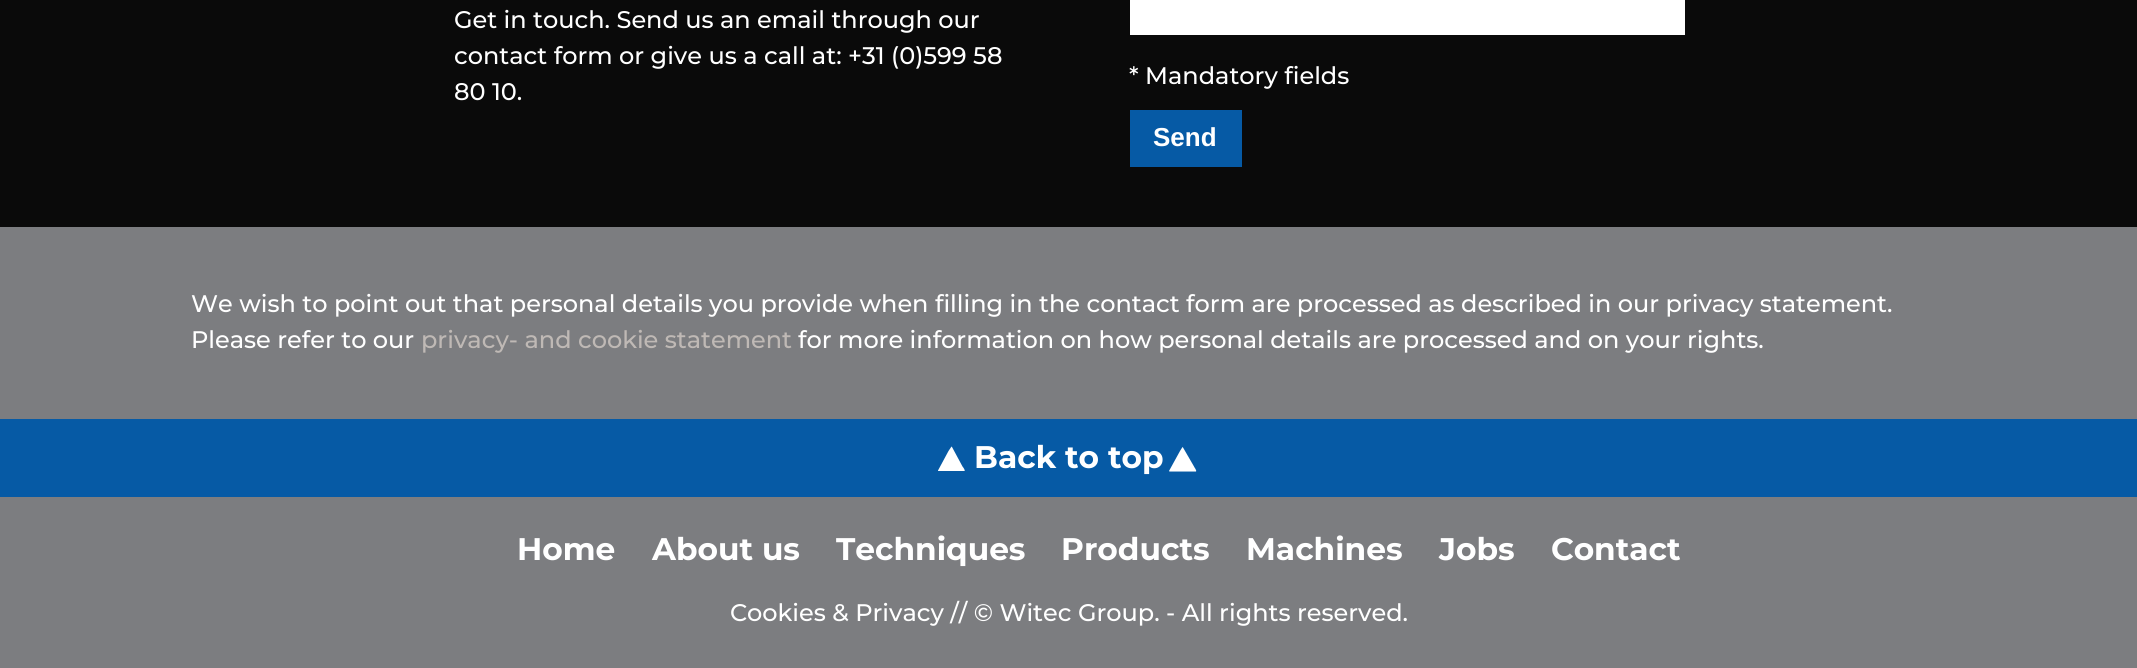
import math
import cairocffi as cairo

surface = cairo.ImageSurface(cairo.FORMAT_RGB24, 2137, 668)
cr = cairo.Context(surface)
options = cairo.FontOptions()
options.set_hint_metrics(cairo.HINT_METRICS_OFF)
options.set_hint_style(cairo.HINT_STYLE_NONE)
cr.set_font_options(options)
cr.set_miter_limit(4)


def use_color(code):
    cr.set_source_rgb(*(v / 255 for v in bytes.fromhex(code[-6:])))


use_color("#0a0a0a")
cr.paint()
cr.select_font_face("Montserrat Medium")
cr.set_font_size(24)
use_color("#ffffff")
cr.move_to(454, 28)
cr.show_text("Get in touch. Send us an email through our")
cr.move_to(454, 64)
cr.show_text("contact form or give us a call at: +31 (0)599 58")
cr.move_to(454, 100)
cr.show_text("80 10.")
cr.rectangle(1130, 0, 555, 35)
cr.fill()
cr.move_to(1129, 84)
cr.show_text("* Mandatory fields")
use_color("#065aa5")
cr.rectangle(1130, 110, 112, 57)
cr.fill()
cr.select_font_face("Liberation Sans", cairo.FONT_SLANT_NORMAL, cairo.FONT_WEIGHT_BOLD)
cr.set_font_size(26)
use_color("#ffffff")
cr.move_to(1153, 146)
cr.show_text("Send")
use_color("#7c7d80")
cr.rectangle(0, 227, 2137, 192)
cr.fill()
cr.select_font_face("Montserrat Medium")
cr.set_font_size(24)
use_color("#ffffff")
cr.move_to(191, 312)
cr.show_text("We wish to point out that personal details you provide when filling in the contact form are processed as described in our privacy statement.")
cr.move_to(191, 348)
cr.show_text("Please refer to our")
use_color("#bfb9b5")
cr.move_to(421, 348)
cr.show_text("privacy- and cookie statement")
use_color("#ffffff")
cr.move_to(798, 348)
cr.show_text("for more information on how personal details are processed and on your rights.")
use_color("#065aa5")
cr.rectangle(0, 419, 2137, 78)
cr.fill()
use_color("#ffffff")
cr.new_path()
cr.move_to(952, 447)
cr.line_to(962.5, 466.5)
cr.curve_to(963, 467, 965.5, 470.5, 964.5, 471)
cr.line_to(938, 471)
cr.line_to(938, 470.5)
cr.line_to(948.5, 451)
cr.line_to(951.5, 446.5)
cr.close_path()
cr.fill()
cr.select_font_face("Montserrat", cairo.FONT_SLANT_NORMAL, cairo.FONT_WEIGHT_BOLD)
cr.set_font_size(31.25)
cr.move_to(974, 468)
cr.show_text("Back to top")
cr.new_path()
cr.move_to(1183, 447.5)
cr.line_to(1194, 466.5)
cr.curve_to(1194, 467, 1197, 470.5, 1196, 471.5)
cr.line_to(1169.5, 471.5)
cr.line_to(1169, 471)
cr.line_to(1180, 451)
cr.line_to(1182.5, 447)
cr.close_path()
cr.fill()
use_color("#7c7d80")
cr.rectangle(0, 497, 2137, 171)
cr.fill()
use_color("#ffffff")
cr.move_to(517, 560)
cr.show_text("Home")
cr.move_to(652, 560)
cr.show_text("About us")
cr.move_to(836, 560)
cr.show_text("Techniques")
cr.move_to(1061, 560)
cr.show_text("Products")
cr.move_to(1246, 560)
cr.show_text("Machines")
cr.move_to(1439, 560)
cr.show_text("Jobs")
cr.move_to(1551, 560)
cr.show_text("Contact")
cr.select_font_face("Montserrat Medium")
cr.set_font_size(24)
cr.move_to(730, 621)
cr.show_text("Cookies & Privacy // © Witec Group. - All rights reserved.")
surface.write_to_png("result.png")
